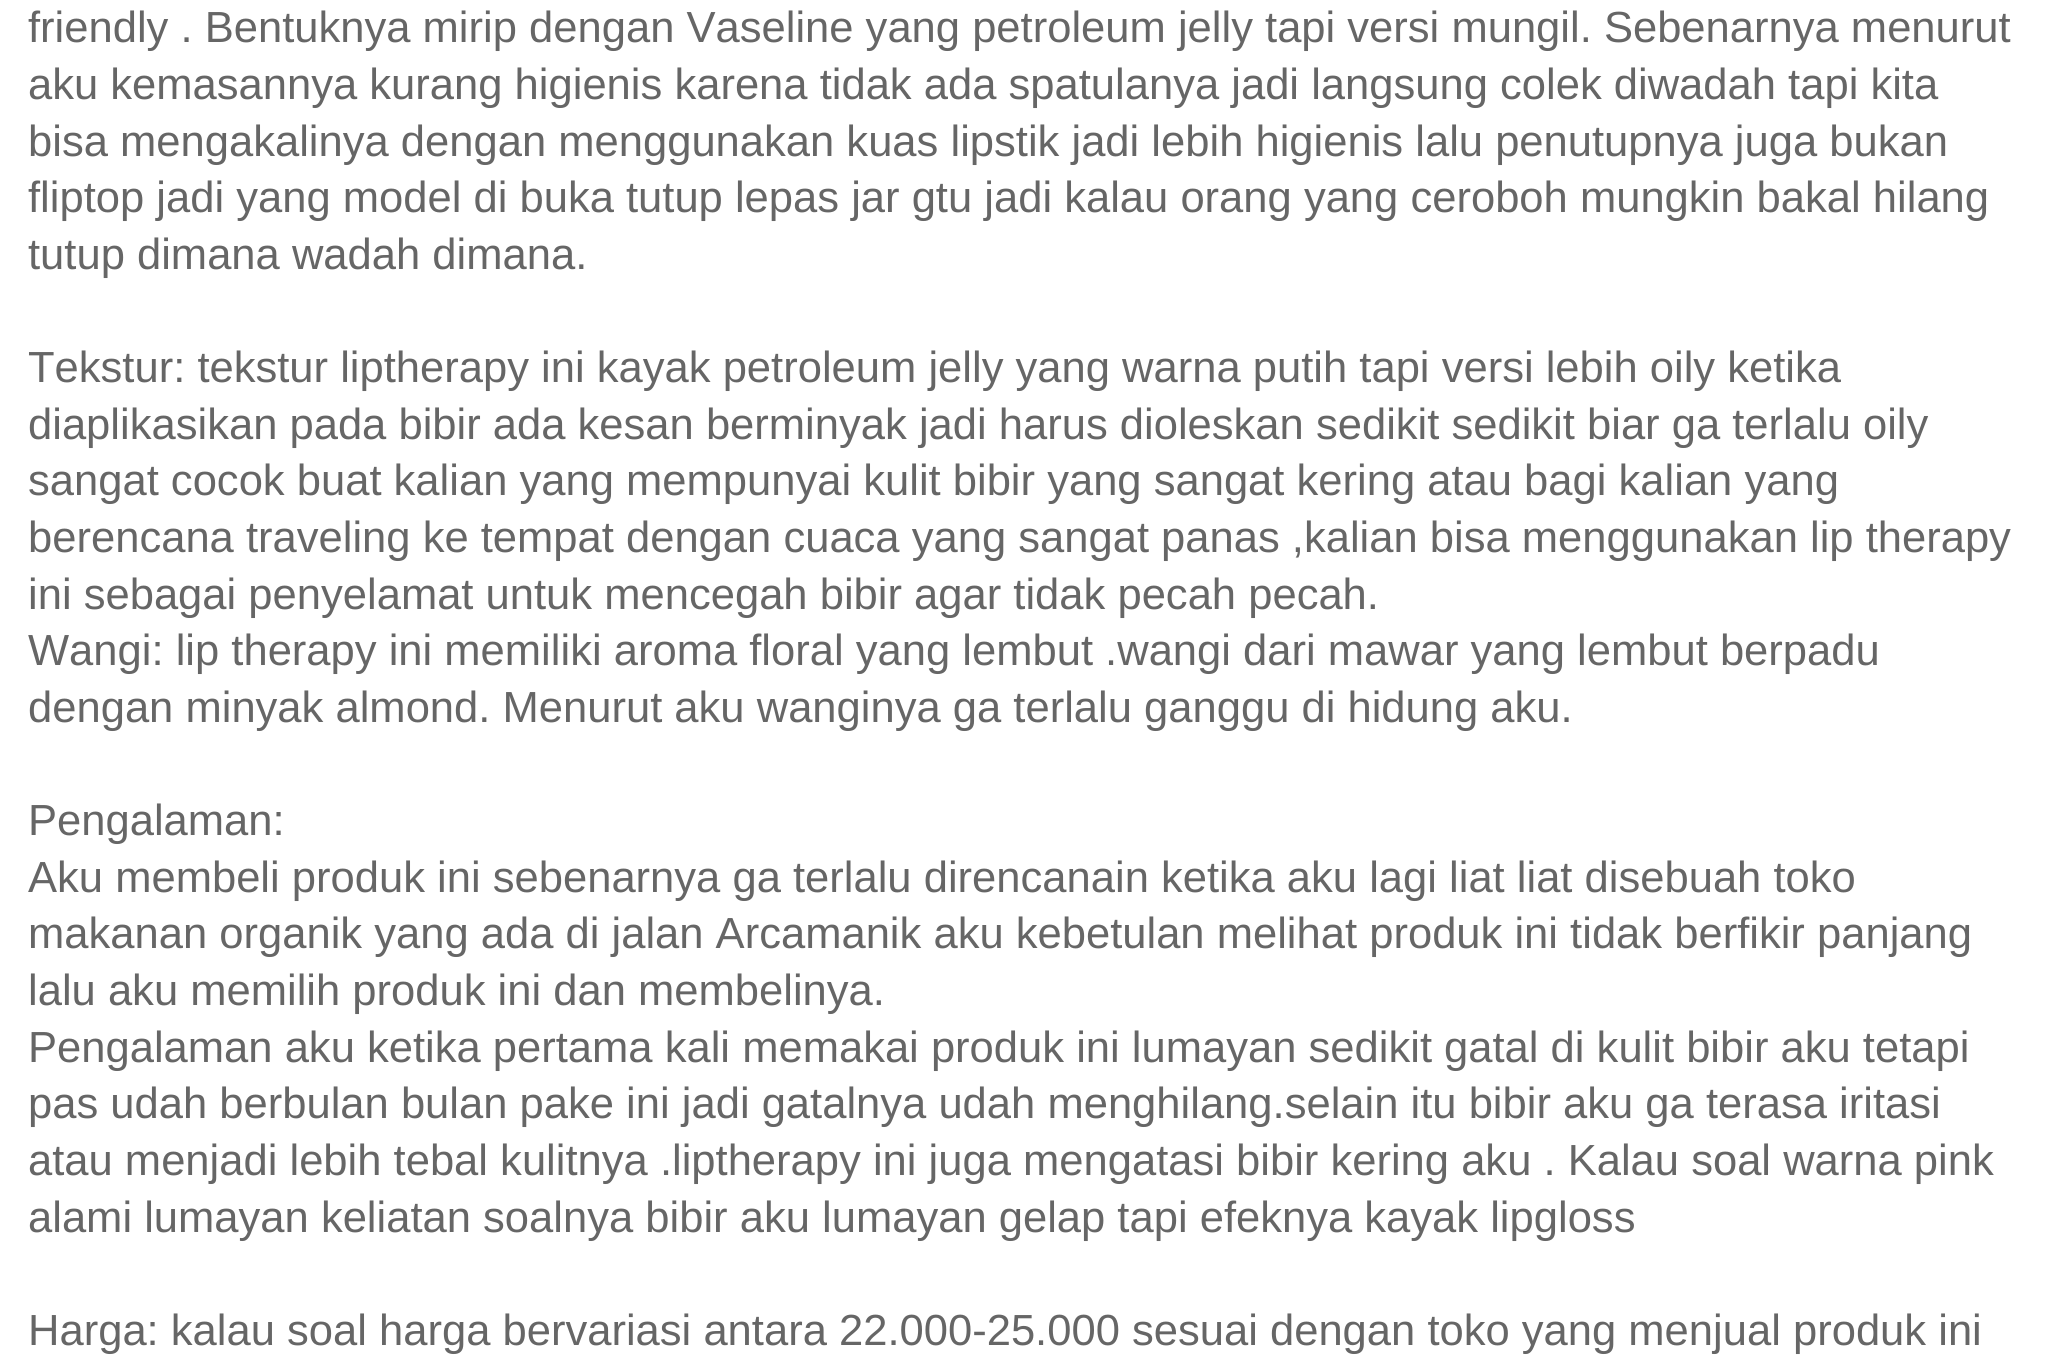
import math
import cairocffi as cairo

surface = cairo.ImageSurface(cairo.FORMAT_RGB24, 2054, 1367)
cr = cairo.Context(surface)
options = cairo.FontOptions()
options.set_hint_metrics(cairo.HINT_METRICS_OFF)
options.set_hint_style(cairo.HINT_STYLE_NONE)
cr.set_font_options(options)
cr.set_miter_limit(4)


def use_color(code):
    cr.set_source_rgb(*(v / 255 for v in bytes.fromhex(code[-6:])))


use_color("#ffffff")
cr.paint()
cr.select_font_face("Liberation Sans")
cr.set_font_size(43.55)
use_color("#666666")
cr.move_to(28, 42)
cr.show_text("friendly . Bentuknya mirip dengan Vaseline yang petroleum jelly tapi versi mungil. Sebenarnya menurut")
cr.move_to(28, 99)
cr.show_text("aku kemasannya kurang higienis karena tidak ada spatulanya jadi langsung colek diwadah tapi kita")
cr.move_to(28, 156)
cr.show_text("bisa mengakalinya dengan menggunakan kuas lipstik jadi lebih higienis lalu penutupnya juga bukan")
cr.move_to(28, 212)
cr.show_text("fliptop jadi yang model di buka tutup lepas jar gtu jadi kalau orang yang ceroboh mungkin bakal hilang")
cr.move_to(28, 269)
cr.show_text("tutup dimana wadah dimana.")
cr.move_to(28, 382)
cr.show_text("Tekstur: tekstur liptherapy ini kayak petroleum jelly yang warna putih tapi versi lebih oily ketika")
cr.move_to(28, 439)
cr.show_text("diaplikasikan pada bibir ada kesan berminyak jadi harus dioleskan sedikit sedikit biar ga terlalu oily")
cr.move_to(28, 495)
cr.show_text("sangat cocok buat kalian yang mempunyai kulit bibir yang sangat kering atau bagi kalian yang")
cr.move_to(28, 552)
cr.show_text("berencana traveling ke tempat dengan cuaca yang sangat panas ,kalian bisa menggunakan lip therapy")
cr.move_to(28, 609)
cr.show_text("ini sebagai penyelamat untuk mencegah bibir agar tidak pecah pecah.")
cr.move_to(28, 665)
cr.show_text("Wangi: lip therapy ini memiliki aroma floral yang lembut .wangi dari mawar yang lembut berpadu")
cr.move_to(28, 722)
cr.show_text("dengan minyak almond. Menurut aku wanginya ga terlalu ganggu di hidung aku.")
cr.move_to(28, 835)
cr.show_text("Pengalaman:")
cr.move_to(28, 892)
cr.show_text("Aku membeli produk ini sebenarnya ga terlalu direncanain ketika aku lagi liat liat disebuah toko")
cr.move_to(28, 948)
cr.show_text("makanan organik yang ada di jalan Arcamanik aku kebetulan melihat produk ini tidak berfikir panjang")
cr.move_to(28, 1005)
cr.show_text("lalu aku memilih produk ini dan membelinya.")
cr.move_to(28, 1062)
cr.show_text("Pengalaman aku ketika pertama kali memakai produk ini lumayan sedikit gatal di kulit bibir aku tetapi")
cr.move_to(28, 1118)
cr.show_text("pas udah berbulan bulan pake ini jadi gatalnya udah menghilang.selain itu bibir aku ga terasa iritasi")
cr.move_to(28, 1175)
cr.show_text("atau menjadi lebih tebal kulitnya .liptherapy ini juga mengatasi bibir kering aku . Kalau soal warna pink")
cr.move_to(28, 1232)
cr.show_text("alami lumayan keliatan soalnya bibir aku lumayan gelap tapi efeknya kayak lipgloss")
cr.move_to(28, 1345)
cr.show_text("Harga: kalau soal harga bervariasi antara 22.000-25.000 sesuai dengan toko yang menjual produk ini")
surface.write_to_png("result.png")
